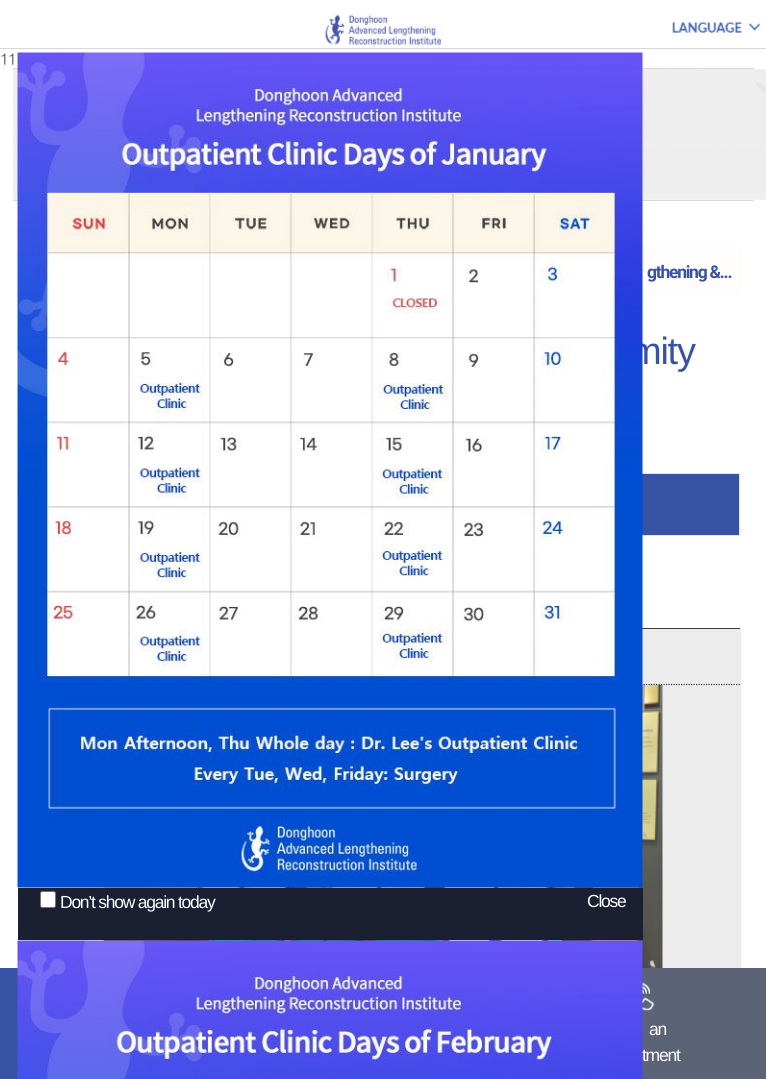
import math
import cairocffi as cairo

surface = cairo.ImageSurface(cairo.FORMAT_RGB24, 766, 1079)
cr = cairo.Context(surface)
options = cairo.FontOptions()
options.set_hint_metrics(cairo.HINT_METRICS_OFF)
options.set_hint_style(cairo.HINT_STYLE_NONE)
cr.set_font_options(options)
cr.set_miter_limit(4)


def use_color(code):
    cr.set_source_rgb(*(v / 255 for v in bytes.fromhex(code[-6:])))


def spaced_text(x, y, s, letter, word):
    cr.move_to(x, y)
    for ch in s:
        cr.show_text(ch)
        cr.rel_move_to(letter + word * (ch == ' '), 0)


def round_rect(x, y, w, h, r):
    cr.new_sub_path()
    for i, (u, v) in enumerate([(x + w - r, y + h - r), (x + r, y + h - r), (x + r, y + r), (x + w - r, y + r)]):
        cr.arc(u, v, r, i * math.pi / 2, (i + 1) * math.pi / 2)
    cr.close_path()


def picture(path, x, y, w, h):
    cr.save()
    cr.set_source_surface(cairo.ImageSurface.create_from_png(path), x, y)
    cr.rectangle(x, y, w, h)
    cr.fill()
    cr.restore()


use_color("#ffffff")
cr.paint()
use_color("#fbfbfb")
cr.rectangle(0, 49, 766, 1)
cr.fill()
use_color("#d9d9d9")
cr.rectangle(0, 48, 766, 1)
cr.fill()
picture("img1.png", 324, 13, 119, 33)
picture("img2.png", 672, 21, 88, 12)
cr.select_font_face("Dotum")
cr.set_font_size(16)
use_color("#444444")
spaced_text(0, 65, "11", -1.25, 0)
use_color("#d9d9d9")
cr.rectangle(13, 68, 741, 1)
cr.fill()
cr.rectangle(13, 200, 741, 1)
cr.fill()
picture("img3.png", 13, 69, 753, 131)
cr.save()
cr.rectangle(756, 81, 10, 20)
cr.clip()
cr.new_path()
cr.move_to(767, 82.5)
cr.line_to(766, 92)
cr.line_to(746.5, 91)
cr.line_to(747, 81)
cr.close_path()
cr.clip()
cr.new_path()
cr.move_to(763.5, 92)
cr.curve_to(763, 102, 748, 101, 749, 91)
cr.curve_to(749.5, 81.5, 764.5, 82.5, 763.5, 92)
cr.close_path()
use_color("#e6e6e6")
cr.set_line_width(5)
cr.stroke()
cr.restore()
use_color("#fffcfc")
round_rect(330, 246, 411, 50, 5)
cr.fill()
cr.select_font_face("Roboto", cairo.FONT_SLANT_NORMAL, cairo.FONT_WEIGHT_BOLD)
cr.set_font_size(17.5)
use_color("#3853a4")
spaced_text(647, 278, "gthening &...", -1.25, 0)
cr.select_font_face("Liberation Sans")
cr.set_font_size(38)
spaced_text(630, 364, "mity", -1.25, 0)
cr.rectangle(642, 474, 97, 61)
cr.fill()
cr.rectangle(24.5, 473.5, 715, 62)
use_color("#e6e6e6")
cr.set_line_width(1)
cr.stroke()
use_color("#ececec")
cr.rectangle(26, 629, 714, 339)
cr.fill()
use_color("#3b3b3b")
cr.rectangle(642, 628, 99, 1)
cr.fill()
use_color("#e9e9e9")
cr.rectangle(740, 628, 1, 340)
cr.fill()
cr.rectangle(25, 887, 1, 54)
cr.fill()
cr.new_path()
cr.move_to(26, 684.5)
cr.line_to(740, 684.5)
use_color("#3b3b3b")
cr.set_line_width(1.2)
cr.set_dash([1.25, 1.25])
cr.stroke()
picture("img4.png", 103, 685, 560, 283)
picture("img5.png", 17, 52, 626, 836)
use_color("#1a1f32")
cr.rectangle(18, 888, 625, 52)
cr.fill()
use_color("#ffffff")
round_rect(40.5, 891.5, 15, 16, 2)
cr.fill_preserve()
use_color("#767676")
cr.set_line_width(1)
cr.set_dash([])
cr.stroke()
cr.set_font_size(17.5)
use_color("#ffffff")
spaced_text(60, 908, "Don’t show again today", -1.25, 0)
spaced_text(587, 907, "Close", -1.25, 0)
use_color("#3853a4")
cr.rectangle(0, 968, 18, 111)
cr.fill()
use_color("#5b6376")
cr.rectangle(642, 968, 124, 111)
cr.fill()
picture("img7.png", 642, 982, 12, 29)
use_color("#ffffff")
spaced_text(642, 1061, "tment", -1.25, 0)
picture("img6.png", 17, 940, 626, 139)
spaced_text(649, 1035, "an", -1.25, 0)
surface.write_to_png("result.png")
